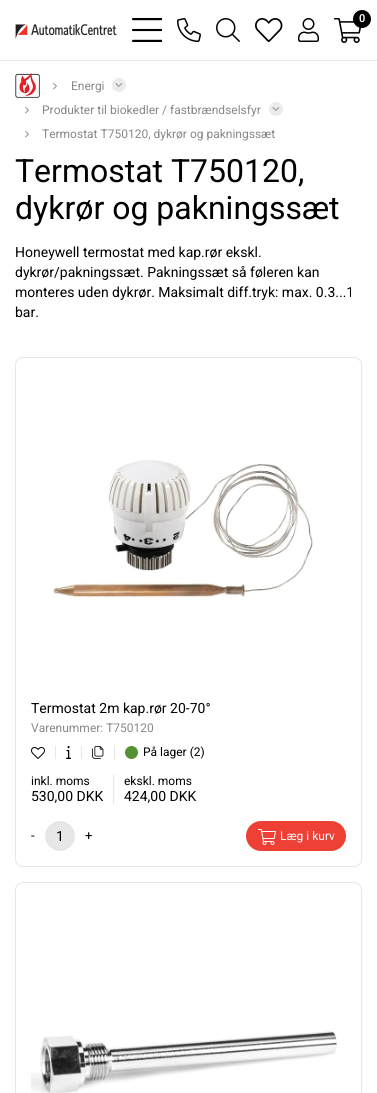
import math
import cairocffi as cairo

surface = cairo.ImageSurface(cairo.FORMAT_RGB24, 377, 1093)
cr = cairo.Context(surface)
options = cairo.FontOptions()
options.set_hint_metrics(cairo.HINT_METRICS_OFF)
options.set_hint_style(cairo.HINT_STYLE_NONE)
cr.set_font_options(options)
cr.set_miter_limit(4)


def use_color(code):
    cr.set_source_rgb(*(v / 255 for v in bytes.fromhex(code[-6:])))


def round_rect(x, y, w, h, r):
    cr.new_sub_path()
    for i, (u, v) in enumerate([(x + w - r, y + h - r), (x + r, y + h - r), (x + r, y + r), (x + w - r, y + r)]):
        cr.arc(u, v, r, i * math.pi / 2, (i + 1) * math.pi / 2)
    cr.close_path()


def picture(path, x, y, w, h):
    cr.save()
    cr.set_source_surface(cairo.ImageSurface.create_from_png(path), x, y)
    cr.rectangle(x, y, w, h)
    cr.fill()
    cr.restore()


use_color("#ffffff")
cr.paint()
use_color("#e7e7e8")
cr.rectangle(0, 60, 377, 1)
cr.fill()
picture("img1.png", 132, 18, 30, 24)
picture("img2.png", 177, 18, 24, 24)
picture("img3.png", 216, 18, 24, 24)
picture("img4.png", 255, 18, 28, 24)
picture("img5.png", 298, 18, 21, 24)
picture("img6.png", 334, 18, 28, 25)
use_color("#000000")
cr.arc(362, 19, 9, 0, 2 * math.pi)
cr.fill()
cr.select_font_face("Roboto SemiBold")
cr.set_font_size(11)
use_color("#ffffff")
cr.move_to(359, 22)
cr.show_text("0")
picture("img7.png", 15, 24, 102, 15)
picture("img8.png", 15, 73, 25, 25)
picture("img9.png", 53, 82, 4, 8)
cr.select_font_face("Roboto")
cr.set_font_size(12)
use_color("#888888")
cr.move_to(71, 90)
cr.show_text("Energi")
use_color("#ebebeb")
cr.new_path()
cr.arc(119, 85, 7, 0, 2 * math.pi)
cr.fill()
picture("img10.png", 115, 83, 8, 4)
picture("img9.png", 25, 106, 4, 8)
use_color("#888888")
cr.move_to(42, 114)
cr.show_text("Produkter til biokedler / fastbrændselsfyr")
use_color("#ebebeb")
cr.new_path()
cr.arc(276, 109, 7, 0, 2 * math.pi)
cr.fill()
picture("img10.png", 272, 107, 8, 4)
picture("img9.png", 25, 130, 4, 8)
use_color("#888888")
cr.move_to(42, 138)
cr.show_text("Termostat T750120, dykrør og pakningssæt")
cr.set_font_size(32)
use_color("#000000")
cr.move_to(15, 182)
cr.show_text("Termostat T750120,")
cr.move_to(15, 219)
cr.show_text("dykrør og pakningssæt")
cr.set_font_size(14)
cr.move_to(15, 257)
cr.show_text("Honeywell termostat med kap.rør ekskl.")
cr.move_to(15, 277)
cr.show_text("dykrør/pakningssæt. Pakningssæt så føleren kan")
cr.move_to(15, 297)
cr.show_text("monteres uden dykrør. Maksimalt diff.tryk: max. 0.3...1")
cr.move_to(15, 317)
cr.show_text("bar.")
round_rect(15.5, 357.5, 346, 509, 7.5)
use_color("#e7e7e8")
cr.set_line_width(1)
cr.stroke()
picture("img11.png", 53, 460, 260, 140)
use_color("#000000")
cr.move_to(31, 713)
cr.show_text("Termostat 2m kap.rør 20-70°")
cr.set_font_size(12)
use_color("#888888")
cr.move_to(31, 732)
cr.show_text("Varenummer: T750120")
use_color("#e7e7e8")
cr.rectangle(55, 746, 1, 13)
cr.fill()
picture("img12.png", 31, 747, 14, 12)
cr.rectangle(81, 746, 1, 13)
cr.fill()
picture("img13.png", 66, 746, 5, 13)
cr.rectangle(114, 746, 1, 13)
cr.fill()
picture("img14.png", 92, 746, 12, 13)
use_color("#549132")
cr.arc(131.5, 752.5, 6.5, 0, 2 * math.pi)
cr.fill()
use_color("#000000")
cr.move_to(143, 756)
cr.show_text("På lager (2)")
cr.move_to(31, 785)
cr.show_text("inkl. moms")
cr.set_font_size(14)
cr.move_to(31, 801)
cr.show_text("530,00 DKK")
use_color("#e7e7e8")
cr.rectangle(113, 774, 1, 30)
cr.fill()
cr.set_font_size(12)
use_color("#000000")
cr.move_to(124, 785)
cr.show_text("ekskl. moms")
cr.set_font_size(14)
cr.move_to(124, 801)
cr.show_text("424,00 DKK")
cr.set_font_size(13)
cr.move_to(31, 840)
cr.show_text("-")
use_color("#e7e7e8")
cr.new_path()
cr.arc(60, 836, 15, 0, 2 * math.pi)
cr.fill()
cr.set_font_size(14)
use_color("#000000")
cr.move_to(56, 841)
cr.show_text("1")
cr.set_font_size(13)
cr.move_to(85, 840)
cr.show_text("+")
use_color("#ef4035")
round_rect(246, 821, 100, 30, 15)
cr.fill()
picture("img15.png", 258, 829, 18, 16)
cr.set_font_size(12)
use_color("#ffffff")
cr.move_to(280, 840)
cr.show_text("Læg i kurv")
round_rect(15.5, 882.5, 346, 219, 7.5)
use_color("#e7e7e8")
cr.stroke()
picture("img16.png", 31, 1031, 306, 62)
surface.write_to_png("result.png")
